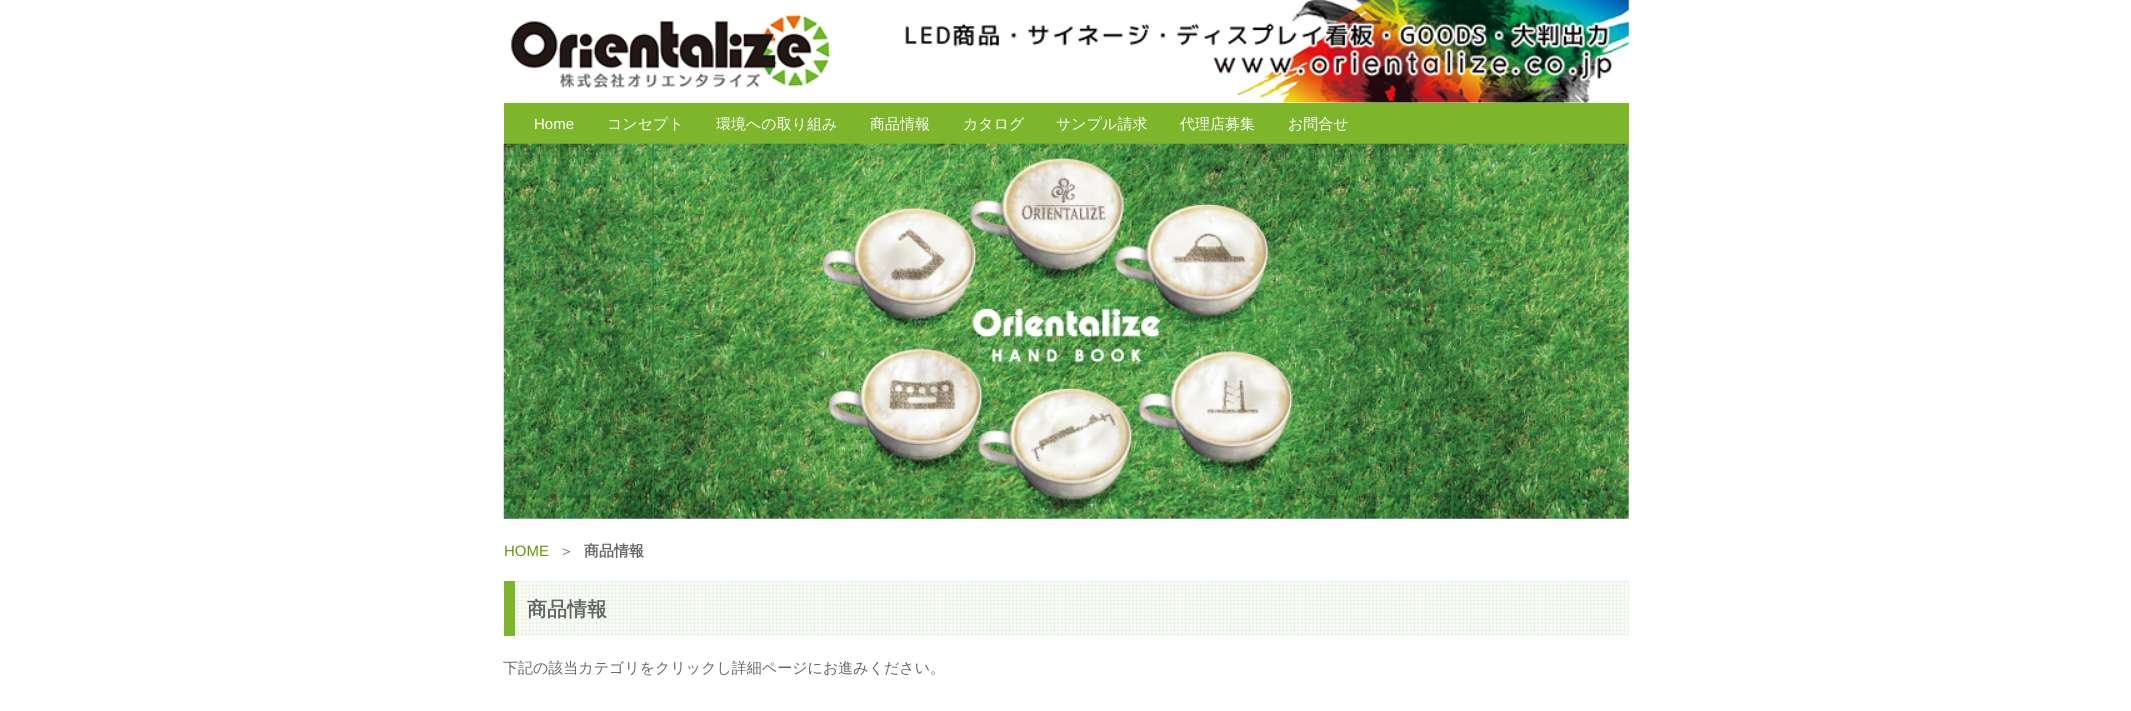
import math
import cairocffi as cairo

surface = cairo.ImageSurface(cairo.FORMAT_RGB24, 2131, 711)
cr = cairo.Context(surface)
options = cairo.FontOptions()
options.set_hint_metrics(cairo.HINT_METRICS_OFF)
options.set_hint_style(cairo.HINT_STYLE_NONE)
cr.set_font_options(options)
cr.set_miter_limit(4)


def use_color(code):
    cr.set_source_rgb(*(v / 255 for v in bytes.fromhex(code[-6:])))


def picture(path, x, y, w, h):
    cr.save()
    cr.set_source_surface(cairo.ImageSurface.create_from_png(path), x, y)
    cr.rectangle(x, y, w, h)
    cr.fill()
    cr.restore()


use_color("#ffffff")
cr.paint()
picture("img1.png", 511, 0, 1118, 103)
use_color("#7db62a")
cr.rectangle(504, 103, 1125, 41)
cr.fill()
cr.select_font_face("Liberation Sans")
cr.set_font_size(15)
use_color("#ffffff")
cr.move_to(534, 129)
cr.show_text("Home")
cr.select_font_face("WenQuanYi Zen Hei Medium")
cr.move_to(607, 129)
cr.show_text("コンセプト")
cr.move_to(716, 129)
cr.show_text("環境への取り組み")
cr.move_to(870, 129)
cr.show_text("商品情報")
cr.move_to(963, 129)
cr.show_text("カタログ")
cr.move_to(1056, 129)
cr.show_text("サンプル請求")
cr.move_to(1180, 129)
cr.show_text("代理店募集")
cr.move_to(1288, 129)
cr.show_text("お問合せ")
picture("img2.png", 503, 143, 1126, 376)
cr.select_font_face("Liberation Sans")
use_color("#669900")
cr.move_to(504, 556)
cr.show_text("HOME")
cr.select_font_face("WenQuanYi Zen Hei Medium")
use_color("#666666")
cr.move_to(559, 556)
cr.show_text("＞")
cr.select_font_face("WenQuanYi Zen Hei", cairo.FONT_SLANT_NORMAL, cairo.FONT_WEIGHT_BOLD)
cr.move_to(584, 556)
cr.show_text("商品情報")
use_color("#ebf3e4")
cr.rectangle(515, 581, 1114, 55)
cr.fill()
picture("img3.png", 515, 582, 1114, 54)
use_color("#7db62b")
cr.rectangle(504, 581, 11, 55)
cr.fill()
cr.set_font_size(20)
use_color("#666666")
cr.move_to(527, 616)
cr.show_text("商品情報")
cr.select_font_face("WenQuanYi Zen Hei Medium")
cr.set_font_size(15)
cr.move_to(503, 673)
cr.show_text("下記の該当カテゴリをクリックし詳細ページにお進みください。")
surface.write_to_png("result.png")
